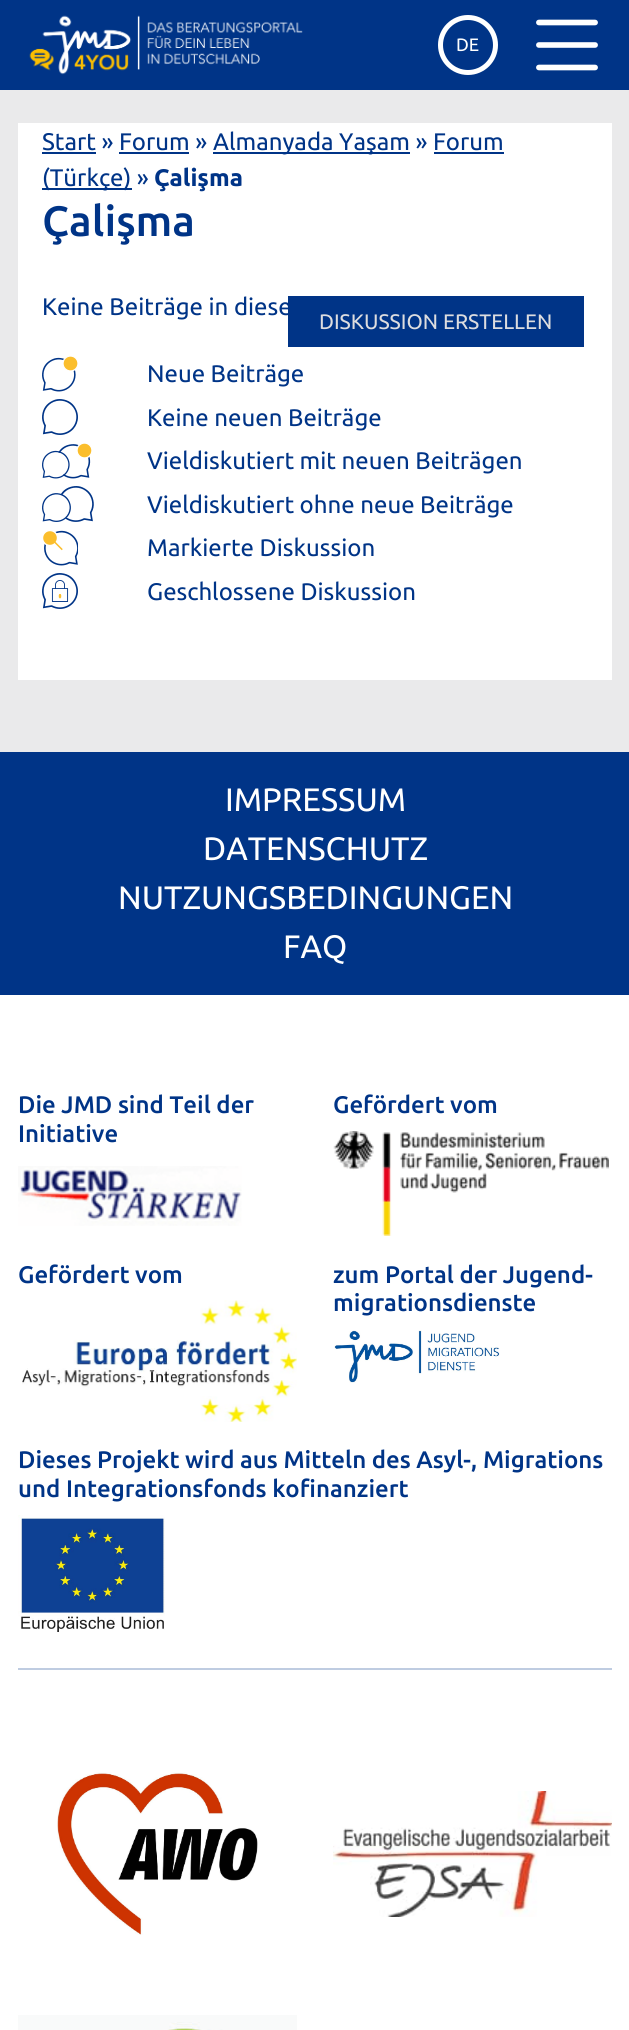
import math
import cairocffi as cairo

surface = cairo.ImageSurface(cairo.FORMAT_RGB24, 629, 2030)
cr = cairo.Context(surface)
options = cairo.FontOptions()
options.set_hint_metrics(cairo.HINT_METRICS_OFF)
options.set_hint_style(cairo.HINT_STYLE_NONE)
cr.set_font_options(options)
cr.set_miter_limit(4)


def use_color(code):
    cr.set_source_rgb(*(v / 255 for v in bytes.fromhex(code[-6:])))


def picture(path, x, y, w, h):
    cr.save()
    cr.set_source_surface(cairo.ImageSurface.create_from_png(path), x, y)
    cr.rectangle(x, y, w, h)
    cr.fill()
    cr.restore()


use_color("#ffffff")
cr.paint()
use_color("#003487")
cr.rectangle(0, 0, 629, 90)
cr.fill()
picture("img1.png", 29, 15, 274, 60)
cr.arc(468, 45, 27.5, 0, 2 * math.pi)
use_color("#ffffff")
cr.set_line_width(5)
cr.stroke()
cr.select_font_face("Ubuntu")
cr.set_font_size(18)
cr.move_to(456, 51)
cr.show_text("DE")
picture("img2.png", 536, 19, 62, 52)
use_color("#eaeaeb")
cr.rectangle(0, 90, 629, 662)
cr.fill()
use_color("#ffffff")
cr.rectangle(18, 123, 594, 557)
cr.fill()
cr.set_font_size(24)
use_color("#003487")
cr.move_to(42, 150)
cr.show_text("Start » Forum »")
cr.rectangle(42, 152, 54, 2)
cr.fill()
cr.rectangle(213, 152, 197, 2)
cr.fill()
cr.move_to(213, 150)
cr.show_text("Almanyada Yaşam » Forum")
cr.rectangle(119, 152, 70, 2)
cr.fill()
cr.rectangle(42, 188, 90, 2)
cr.fill()
cr.move_to(42, 186)
cr.show_text("(Türkçe) »")
cr.rectangle(434, 152, 70, 2)
cr.fill()
cr.select_font_face("Ubuntu", cairo.FONT_SLANT_NORMAL, cairo.FONT_WEIGHT_BOLD)
cr.move_to(154, 186)
cr.show_text("Çalişma")
cr.select_font_face("Ubuntu Medium")
cr.set_font_size(42.5)
cr.move_to(42, 236)
cr.show_text("Çalişma")
cr.select_font_face("Ubuntu")
cr.set_font_size(24)
cr.move_to(42, 315)
cr.show_text("Keine Beiträge in diese")
cr.rectangle(288, 296, 296, 51)
cr.fill()
cr.set_font_size(21)
use_color("#dddddf")
cr.move_to(319, 329)
cr.show_text("DISKUSSION ERSTELLEN")
picture("img3.png", 42, 356, 36, 36)
cr.set_font_size(24)
use_color("#003487")
cr.move_to(147, 382)
cr.show_text("Neue Beiträge")
picture("img4.png", 42, 399, 36, 36)
cr.move_to(147, 426)
cr.show_text("Keine neuen Beiträge")
picture("img5.png", 42, 443, 50, 36)
cr.move_to(147, 469)
cr.show_text("Vieldiskutiert mit neuen Beiträgen")
picture("img6.png", 42, 486, 52, 36)
cr.move_to(147, 513)
cr.show_text("Vieldiskutiert ohne neue Beiträge")
picture("img7.png", 43, 530, 35, 36)
cr.move_to(147, 556)
cr.show_text("Markierte Diskussion")
picture("img8.png", 42, 573, 36, 36)
cr.move_to(147, 600)
cr.show_text("Geschlossene Diskussion")
cr.rectangle(0, 752, 629, 243)
cr.fill()
cr.set_font_size(32.5)
use_color("#ffffff")
cr.move_to(225, 811)
cr.show_text("IMPRESSUM")
cr.move_to(203, 860)
cr.show_text("DATENSCHUTZ")
cr.move_to(118, 909)
cr.show_text("NUTZUNGSBEDINGUNGEN")
cr.move_to(283, 958)
cr.show_text("FAQ")
cr.select_font_face("Ubuntu Medium")
cr.set_font_size(24)
use_color("#003487")
cr.move_to(18, 1113)
cr.show_text("Die JMD sind Teil der")
cr.move_to(18, 1142)
cr.show_text("Initiative")
picture("img9.png", 18, 1166, 224, 60)
cr.move_to(333, 1113)
cr.show_text("Gefördert vom")
picture("img10.png", 333, 1131, 276, 105)
cr.move_to(18, 1283)
cr.show_text("Gefördert vom")
picture("img11.png", 22, 1300, 275, 122)
cr.move_to(333, 1283)
cr.show_text("zum Portal der Jugend-")
cr.move_to(333, 1311)
cr.show_text("migrationsdienste")
picture("img12.png", 334, 1330, 166, 53)
cr.move_to(18, 1468)
cr.show_text("Dieses Projekt wird aus Mitteln des Asyl-, Migrations")
cr.move_to(18, 1497)
cr.show_text("und Integrationsfonds kofinanziert")
picture("img13.png", 18, 1515, 147, 117)
use_color("#bfcce1")
cr.rectangle(18, 1668, 594, 2)
cr.fill()
picture("img14.png", 57, 1772, 201, 163)
picture("img15.png", 333, 1791, 279, 126)
picture("img16.png", 18, 2015, 279, 15)
surface.write_to_png("result.png")
